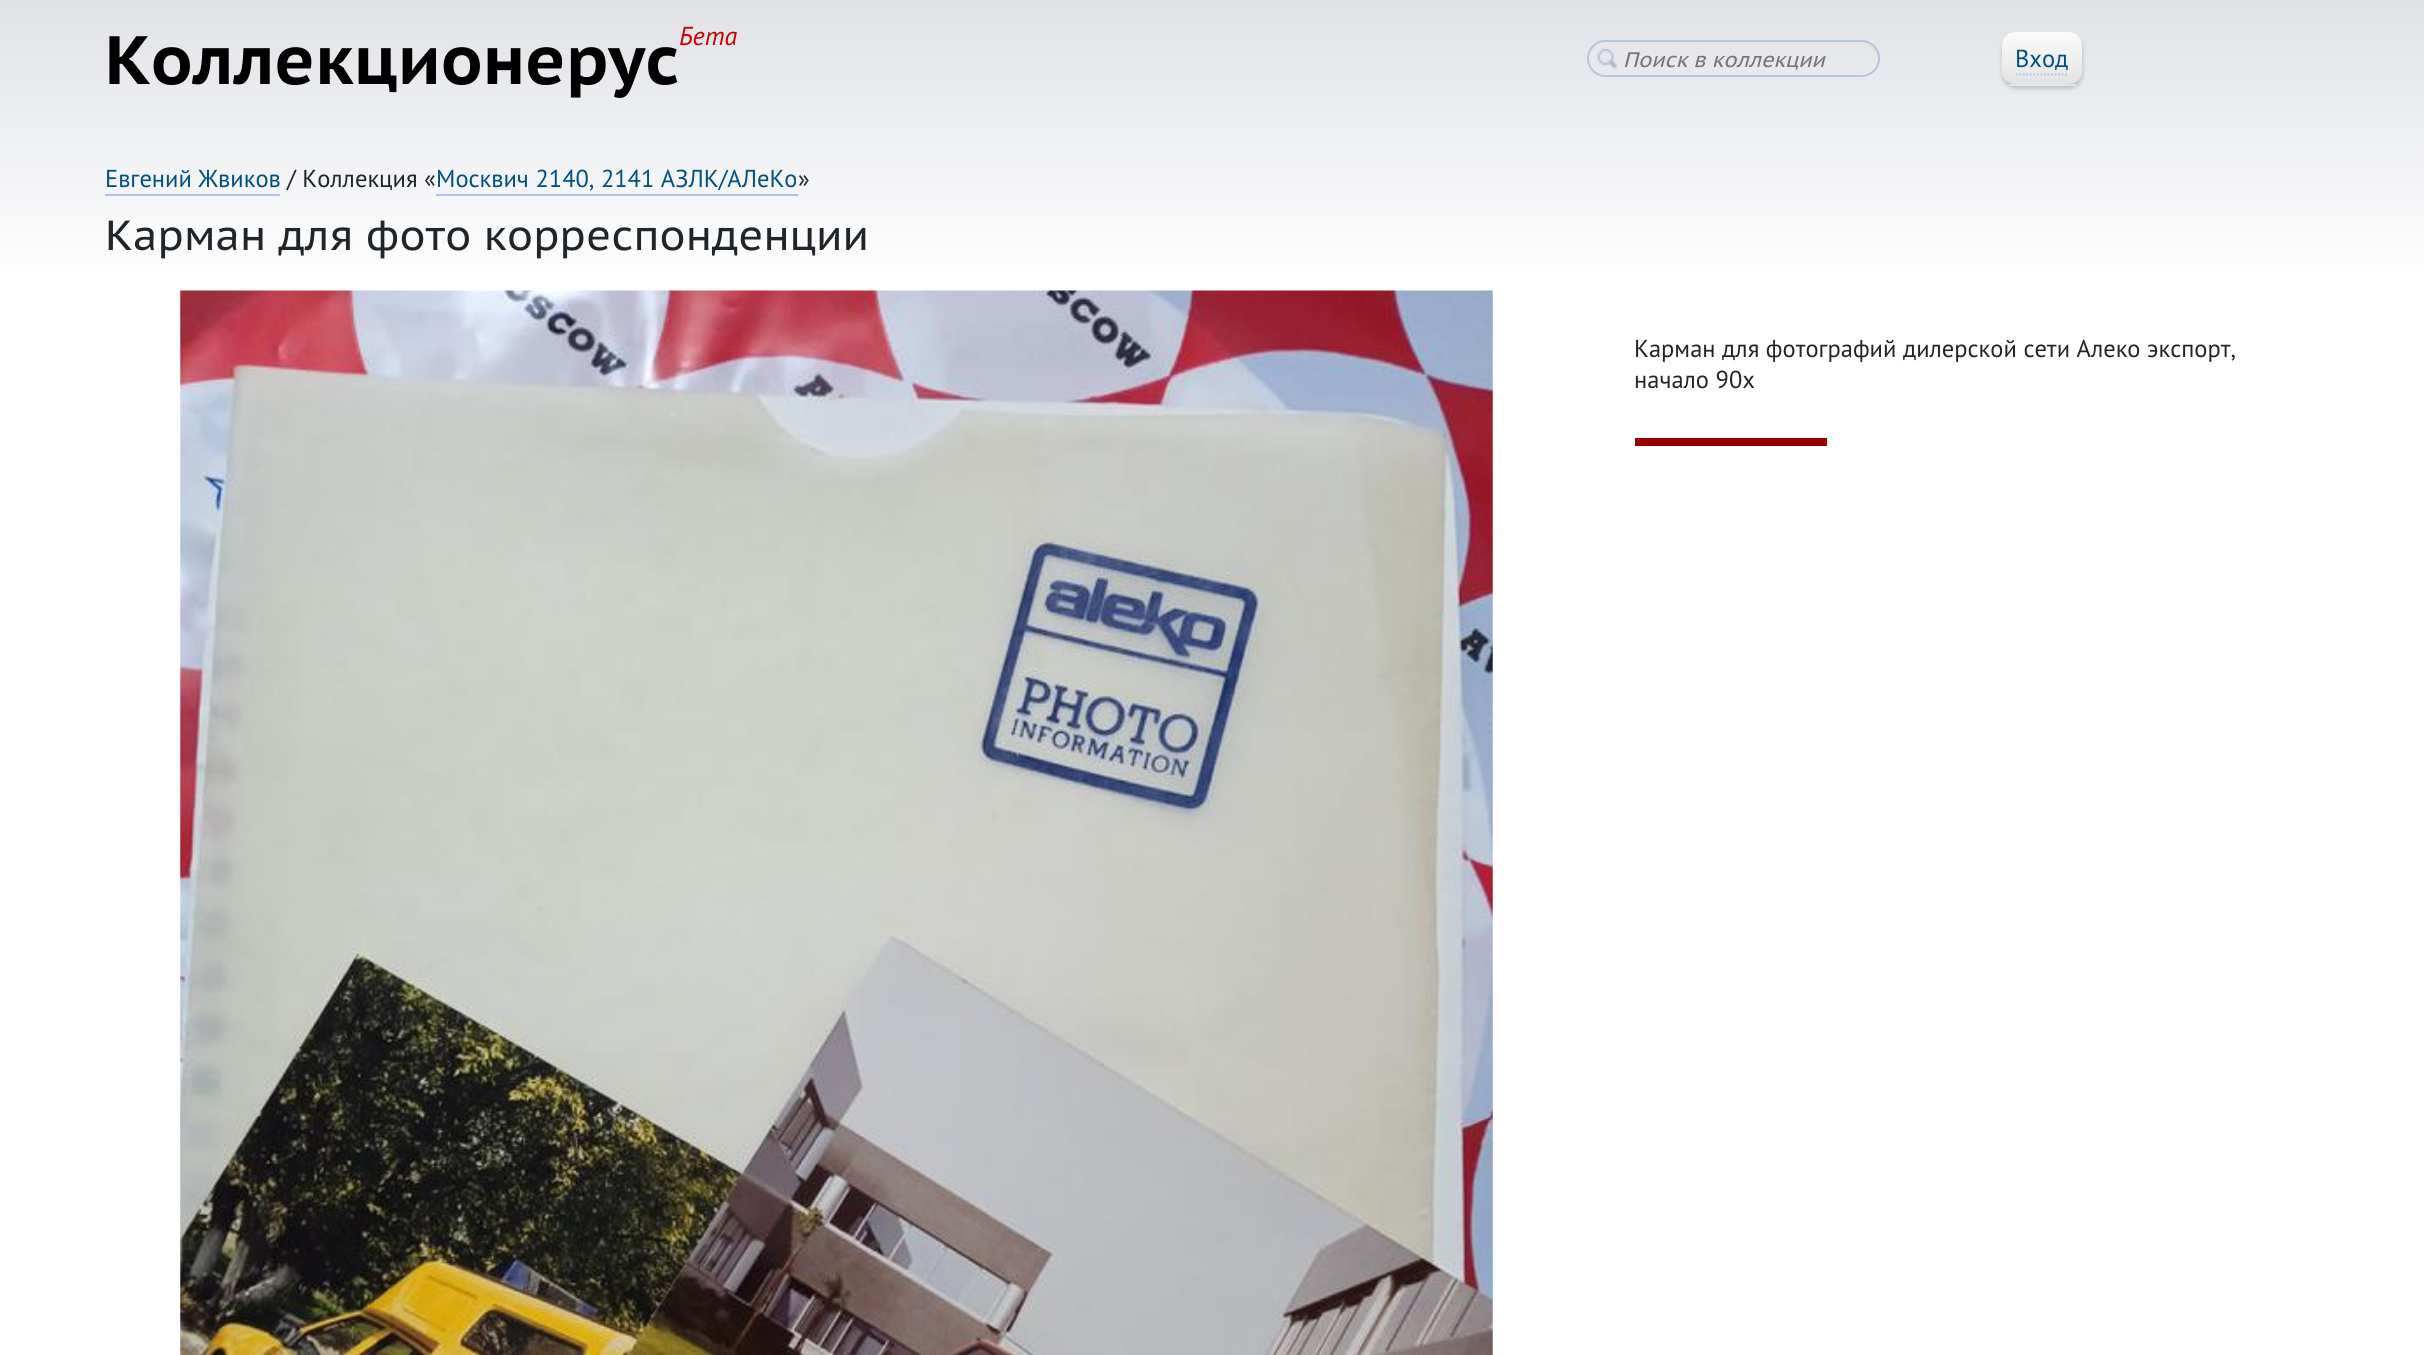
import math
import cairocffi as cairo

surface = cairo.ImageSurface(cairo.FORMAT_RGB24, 2424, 1355)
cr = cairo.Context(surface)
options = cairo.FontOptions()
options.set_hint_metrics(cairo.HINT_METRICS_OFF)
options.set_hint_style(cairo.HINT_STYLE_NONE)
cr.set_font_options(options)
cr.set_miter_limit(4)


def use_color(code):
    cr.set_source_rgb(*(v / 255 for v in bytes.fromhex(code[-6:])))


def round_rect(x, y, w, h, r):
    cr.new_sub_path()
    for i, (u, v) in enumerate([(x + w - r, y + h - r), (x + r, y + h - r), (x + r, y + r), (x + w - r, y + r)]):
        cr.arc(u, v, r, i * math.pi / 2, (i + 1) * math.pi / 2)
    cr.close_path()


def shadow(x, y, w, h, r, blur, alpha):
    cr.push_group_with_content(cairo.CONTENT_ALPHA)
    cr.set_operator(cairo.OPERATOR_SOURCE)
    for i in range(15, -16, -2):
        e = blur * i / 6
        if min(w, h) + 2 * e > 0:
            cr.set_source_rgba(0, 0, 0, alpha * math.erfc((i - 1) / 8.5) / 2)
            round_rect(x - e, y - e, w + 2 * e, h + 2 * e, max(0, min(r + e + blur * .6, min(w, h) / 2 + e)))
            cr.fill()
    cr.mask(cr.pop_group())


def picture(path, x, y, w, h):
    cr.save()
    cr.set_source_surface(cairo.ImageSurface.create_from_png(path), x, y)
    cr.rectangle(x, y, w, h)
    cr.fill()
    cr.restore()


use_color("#ffffff")
cr.paint()
gradient = cairo.LinearGradient(1213, 0, 1213, 289)
gradient.add_color_stop_rgba(0, 0.878, 0.886, 0.902, 1)
gradient.add_color_stop_rgba(1, 1, 1, 1, 1)
cr.set_source(gradient)
cr.rectangle(0, 0, 2424, 266)
cr.fill()
cr.select_font_face("PT Sans Caption", cairo.FONT_SLANT_NORMAL, cairo.FONT_WEIGHT_BOLD)
cr.set_font_size(68.25)
use_color("#000000")
cr.move_to(105, 84)
cr.show_text("Коллекционерус")
cr.select_font_face("PT Sans", cairo.FONT_SLANT_ITALIC)
cr.set_font_size(26)
use_color("#cc0000")
cr.move_to(679, 45)
cr.show_text("Бета")
picture("img1.png", 1597, 49, 20, 20)
round_rect(1588, 41, 291, 35, 17.5)
use_color("#b6c6db")
cr.stroke()
cr.select_font_face("PT Sans Caption", cairo.FONT_SLANT_ITALIC)
cr.set_font_size(21)
use_color("#757575")
cr.move_to(1623, 67)
cr.show_text("Поиск в коллекции")
use_color("#bbc5cc")
shadow(2002, 35, 81, 54, 14, 2, 1)
gradient = cairo.LinearGradient(2042, 31, 2042, 84)
gradient.add_color_stop_rgba(0, 0.988, 0.988, 0.988, 1)
gradient.add_color_stop_rgba(1, 0.89, 0.89, 0.89, 1)
cr.set_source(gradient)
cr.new_path()
cr.move_to(2016, 32)
cr.line_to(2068, 32)
cr.curve_to(2076, 32, 2082, 38, 2082, 46)
cr.line_to(2082, 72)
cr.curve_to(2082, 79, 2076, 84, 2068, 84)
cr.line_to(2016, 84)
cr.curve_to(2008, 84, 2002, 79, 2002, 72)
cr.line_to(2002, 46)
cr.curve_to(2002, 38, 2008, 32, 2016, 32)
cr.close_path()
cr.fill()
use_color("#e5e5e5")
cr.rectangle(2009, 84, 67, 2)
cr.fill()
cr.select_font_face("PT Sans")
cr.set_font_size(24.5)
use_color("#005080")
cr.move_to(2015, 67)
cr.show_text("Вход")
cr.new_path()
cr.move_to(2016, 74.5)
cr.line_to(2068.5, 74.5)
use_color("#b0c0f0")
cr.set_line_width(1.8)
cr.set_dash([1.75, 1.75])
cr.stroke()
use_color("#005080")
cr.move_to(105, 187)
cr.show_text("Евгений Жвиков")
use_color("#b0c0f0")
cr.rectangle(105, 194, 175, 2)
cr.fill()
use_color("#212529")
cr.move_to(287, 187)
cr.show_text("/ Коллекция «")
use_color("#005080")
cr.move_to(436, 187)
cr.show_text("Москвич 2140, 2141 АЗЛК/АЛеКо")
use_color("#b0c0f0")
cr.rectangle(436, 194, 362, 2)
cr.fill()
use_color("#212529")
cr.move_to(798, 187)
cr.show_text("»")
cr.select_font_face("PT Sans Caption")
cr.set_font_size(42)
cr.move_to(105, 250)
cr.show_text("Карман для фото корреспонденции")
picture("img2.png", 180, 290, 1313, 1065)
cr.select_font_face("PT Sans")
cr.set_font_size(24.5)
cr.move_to(1634, 357)
cr.show_text("Карман для фотографий дилерской сети Алеко экспорт,")
cr.move_to(1634, 388)
cr.show_text("начало 90х")
use_color("#990000")
cr.rectangle(1635, 438, 192, 8)
cr.fill()
surface.write_to_png("result.png")
